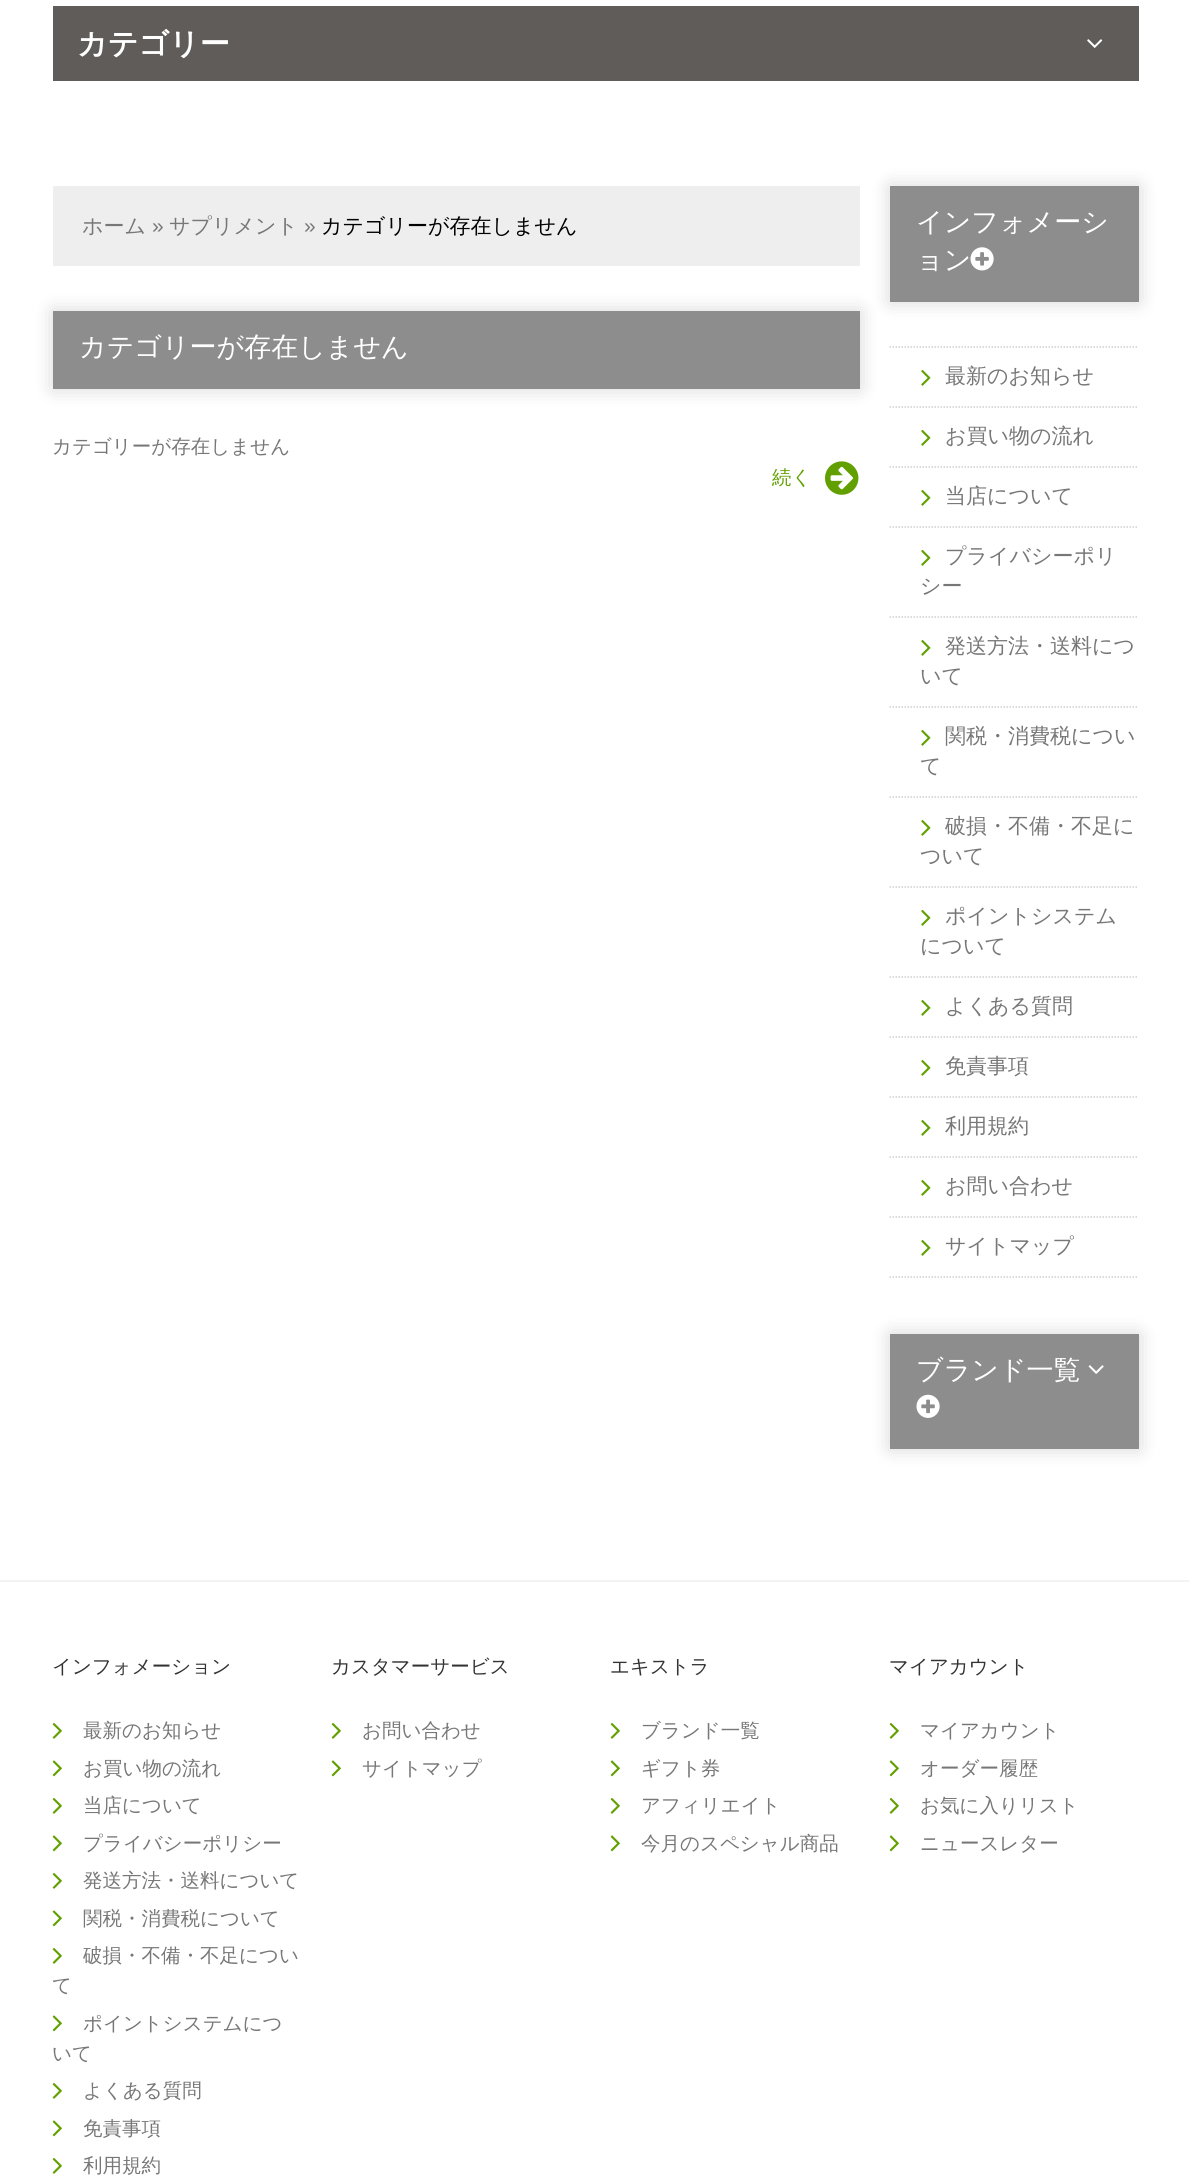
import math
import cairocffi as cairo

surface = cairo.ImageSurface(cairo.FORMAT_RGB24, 1189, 2179)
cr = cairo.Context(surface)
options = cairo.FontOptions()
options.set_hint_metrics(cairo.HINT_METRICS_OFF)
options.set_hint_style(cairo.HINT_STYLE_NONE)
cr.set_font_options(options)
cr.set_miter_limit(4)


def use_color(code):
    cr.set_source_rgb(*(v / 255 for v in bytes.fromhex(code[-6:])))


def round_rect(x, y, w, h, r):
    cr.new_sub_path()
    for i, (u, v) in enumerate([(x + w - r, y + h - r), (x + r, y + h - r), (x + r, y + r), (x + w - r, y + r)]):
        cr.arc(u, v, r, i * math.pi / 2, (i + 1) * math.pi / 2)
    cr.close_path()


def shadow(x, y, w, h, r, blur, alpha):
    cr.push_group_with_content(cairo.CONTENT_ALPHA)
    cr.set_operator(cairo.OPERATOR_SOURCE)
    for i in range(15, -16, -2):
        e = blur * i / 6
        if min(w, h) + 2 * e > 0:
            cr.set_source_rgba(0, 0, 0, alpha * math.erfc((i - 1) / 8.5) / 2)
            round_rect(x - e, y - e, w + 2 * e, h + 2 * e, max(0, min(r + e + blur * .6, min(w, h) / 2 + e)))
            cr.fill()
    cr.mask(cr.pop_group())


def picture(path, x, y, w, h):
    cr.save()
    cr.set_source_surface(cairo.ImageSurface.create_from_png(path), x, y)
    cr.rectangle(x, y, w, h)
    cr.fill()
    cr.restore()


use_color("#ffffff")
cr.paint()
use_color("#605c5a")
cr.rectangle(53, 6, 1086, 75)
cr.fill()
cr.select_font_face("WenQuanYi Zen Hei", cairo.FONT_SLANT_NORMAL, cairo.FONT_WEIGHT_BOLD)
cr.set_font_size(30)
use_color("#ffffff")
cr.move_to(77, 54)
cr.show_text("カテゴリー")
picture("img1.png", 1087, 39, 16, 9)
use_color("#eeeeee")
cr.rectangle(53, 186, 807, 80)
cr.fill()
cr.select_font_face("WenQuanYi Zen Hei Medium")
cr.set_font_size(21)
use_color("#777777")
cr.move_to(82, 233)
cr.show_text("ホーム")
cr.select_font_face("Liberation Sans")
cr.move_to(152, 233)
cr.show_text("»")
cr.select_font_face("WenQuanYi Zen Hei Medium")
cr.move_to(169, 233)
cr.show_text("サプリメント")
cr.select_font_face("Liberation Sans")
cr.move_to(304, 233)
cr.show_text("»")
cr.select_font_face("WenQuanYi Zen Hei Medium")
use_color("#000000")
cr.move_to(321, 233)
cr.show_text("カテゴリーが存在しません")
use_color("#000000")
shadow(53, 311, 807, 78, 0, 10, 0.16)
use_color("#8e8d8d")
cr.rectangle(53, 311, 807, 78)
cr.fill()
cr.set_font_size(27)
use_color("#ffffff")
cr.move_to(79, 356)
cr.show_text("カテゴリーが存在しません")
cr.set_font_size(19.5)
use_color("#777777")
cr.move_to(52, 453)
cr.show_text("カテゴリーが存在しません")
use_color("#62a001")
cr.move_to(772, 484)
cr.show_text("続く")
picture("img2.png", 825, 461, 34, 34)
use_color("#000000")
shadow(890, 186, 249, 116, 0, 10, 0.16)
use_color("#8e8d8d")
cr.rectangle(890, 186, 249, 116)
cr.fill()
cr.set_font_size(27)
use_color("#ffffff")
cr.move_to(916, 231)
cr.show_text("インフォメーシ")
cr.move_to(916, 269)
cr.show_text("ョン")
picture("img3.png", 970, 247, 24, 24)
cr.new_path()
cr.move_to(889.5, 347)
cr.line_to(1138.5, 347)
use_color("#cecece")
cr.set_line_width(1.5)
cr.set_dash([1.5, 1.5])
cr.stroke()
cr.new_path()
cr.move_to(889.5, 407)
cr.line_to(1138.5, 407)
cr.stroke()
picture("img4.png", 921, 370, 10, 16)
cr.set_font_size(21)
use_color("#777777")
cr.move_to(945, 383)
cr.show_text("最新のお知らせ")
cr.new_path()
cr.move_to(889.5, 467)
cr.line_to(1138.5, 467)
use_color("#cecece")
cr.stroke()
picture("img4.png", 921, 430, 10, 16)
use_color("#777777")
cr.move_to(945, 443)
cr.show_text("お買い物の流れ")
cr.new_path()
cr.move_to(889.5, 527)
cr.line_to(1138.5, 527)
use_color("#cecece")
cr.stroke()
picture("img4.png", 921, 490, 10, 16)
use_color("#777777")
cr.move_to(945, 503)
cr.show_text("当店について")
cr.new_path()
cr.move_to(889.5, 617)
cr.line_to(1138.5, 617)
use_color("#cecece")
cr.stroke()
picture("img4.png", 921, 550, 10, 16)
use_color("#777777")
cr.move_to(945, 563)
cr.show_text("プライバシーポリ")
cr.move_to(920, 593)
cr.show_text("シー")
cr.new_path()
cr.move_to(889.5, 707)
cr.line_to(1138.5, 707)
use_color("#cecece")
cr.stroke()
picture("img4.png", 921, 640, 10, 16)
use_color("#777777")
cr.move_to(945, 653)
cr.show_text("発送方法・送料につ")
cr.move_to(920, 683)
cr.show_text("いて")
cr.new_path()
cr.move_to(889.5, 797)
cr.line_to(1138.5, 797)
use_color("#cecece")
cr.stroke()
picture("img4.png", 921, 730, 10, 16)
use_color("#777777")
cr.move_to(945, 743)
cr.show_text("関税・消費税につい")
cr.move_to(920, 773)
cr.show_text("て")
cr.new_path()
cr.move_to(889.5, 887)
cr.line_to(1138.5, 887)
use_color("#cecece")
cr.stroke()
picture("img4.png", 921, 820, 10, 16)
use_color("#777777")
cr.move_to(945, 833)
cr.show_text("破損・不備・不足に")
cr.move_to(920, 863)
cr.show_text("ついて")
cr.new_path()
cr.move_to(889.5, 977)
cr.line_to(1138.5, 977)
use_color("#cecece")
cr.stroke()
picture("img4.png", 921, 910, 10, 16)
use_color("#777777")
cr.move_to(945, 923)
cr.show_text("ポイントシステム")
cr.move_to(920, 953)
cr.show_text("について")
cr.new_path()
cr.move_to(889.5, 1037)
cr.line_to(1138.5, 1037)
use_color("#cecece")
cr.stroke()
picture("img4.png", 921, 1000, 10, 16)
use_color("#777777")
cr.move_to(945, 1013)
cr.show_text("よくある質問")
cr.new_path()
cr.move_to(889.5, 1097)
cr.line_to(1138.5, 1097)
use_color("#cecece")
cr.stroke()
picture("img4.png", 921, 1060, 10, 16)
use_color("#777777")
cr.move_to(945, 1073)
cr.show_text("免責事項")
cr.new_path()
cr.move_to(889.5, 1157)
cr.line_to(1138.5, 1157)
use_color("#cecece")
cr.stroke()
picture("img4.png", 921, 1120, 10, 16)
use_color("#777777")
cr.move_to(945, 1133)
cr.show_text("利用規約")
cr.new_path()
cr.move_to(889.5, 1217)
cr.line_to(1138.5, 1217)
use_color("#cecece")
cr.stroke()
picture("img4.png", 921, 1180, 10, 16)
use_color("#777777")
cr.move_to(945, 1193)
cr.show_text("お問い合わせ")
cr.new_path()
cr.move_to(889.5, 1277)
cr.line_to(1138.5, 1277)
use_color("#cecece")
cr.stroke()
picture("img4.png", 921, 1240, 10, 16)
use_color("#777777")
cr.move_to(945, 1253)
cr.show_text("サイトマップ")
use_color("#000000")
shadow(890, 1334, 249, 115, 0, 10, 0.16)
use_color("#8e8d8d")
cr.rectangle(890, 1334, 249, 115)
cr.fill()
cr.set_font_size(27)
use_color("#ffffff")
cr.move_to(916, 1379)
cr.show_text("ブランド一覧")
picture("img5.png", 1088, 1365, 16, 9)
picture("img6.png", 916, 1394, 24, 24)
use_color("#f3f3f3")
cr.rectangle(0, 1580, 1189, 2)
cr.fill()
cr.set_font_size(19.5)
use_color("#333333")
cr.move_to(52, 1673)
cr.show_text("インフォメーション")
picture("img7.png", 52, 1723, 10, 16)
use_color("#777777")
cr.move_to(83, 1737)
cr.show_text("最新のお知らせ")
picture("img8.png", 52, 1760, 10, 17)
cr.move_to(83, 1775)
cr.show_text("お買い物の流れ")
picture("img7.png", 52, 1798, 10, 16)
cr.move_to(83, 1812)
cr.show_text("当店について")
picture("img8.png", 52, 1835, 10, 17)
cr.move_to(83, 1850)
cr.show_text("プライバシーポリシー")
picture("img7.png", 52, 1873, 10, 16)
cr.move_to(83, 1887)
cr.show_text("発送方法・送料について")
picture("img8.png", 52, 1910, 10, 17)
cr.move_to(83, 1925)
cr.show_text("関税・消費税について")
picture("img7.png", 52, 1948, 10, 16)
cr.move_to(83, 1962)
cr.show_text("破損・不備・不足につい")
cr.move_to(52, 1992)
cr.show_text("て")
picture("img8.png", 52, 2015, 10, 17)
cr.move_to(83, 2030)
cr.show_text("ポイントシステムにつ")
cr.move_to(52, 2060)
cr.show_text("いて")
picture("img7.png", 52, 2083, 10, 16)
cr.move_to(83, 2097)
cr.show_text("よくある質問")
picture("img8.png", 52, 2120, 10, 17)
cr.move_to(83, 2135)
cr.show_text("免責事項")
picture("img7.png", 52, 2158, 10, 16)
cr.move_to(83, 2172)
cr.show_text("利用規約")
use_color("#333333")
cr.move_to(331, 1673)
cr.show_text("カスタマーサービス")
picture("img7.png", 331, 1723, 10, 16)
use_color("#777777")
cr.move_to(362, 1737)
cr.show_text("お問い合わせ")
picture("img8.png", 331, 1760, 10, 17)
cr.move_to(362, 1775)
cr.show_text("サイトマップ")
use_color("#333333")
cr.move_to(610, 1673)
cr.show_text("エキストラ")
picture("img7.png", 610, 1723, 10, 16)
use_color("#777777")
cr.move_to(641, 1737)
cr.show_text("ブランド一覧")
picture("img8.png", 610, 1760, 10, 17)
cr.move_to(641, 1775)
cr.show_text("ギフト券")
picture("img7.png", 610, 1798, 10, 16)
cr.move_to(641, 1812)
cr.show_text("アフィリエイト")
picture("img8.png", 610, 1835, 10, 17)
cr.move_to(641, 1850)
cr.show_text("今月のスペシャル商品")
use_color("#333333")
cr.move_to(889, 1673)
cr.show_text("マイアカウント")
picture("img7.png", 889, 1723, 10, 16)
use_color("#777777")
cr.move_to(920, 1737)
cr.show_text("マイアカウント")
picture("img8.png", 889, 1760, 10, 17)
cr.move_to(920, 1775)
cr.show_text("オーダー履歴")
picture("img7.png", 889, 1798, 10, 16)
cr.move_to(920, 1812)
cr.show_text("お気に入りリスト")
picture("img8.png", 889, 1835, 10, 17)
cr.move_to(920, 1850)
cr.show_text("ニュースレター")
surface.write_to_png("result.png")
